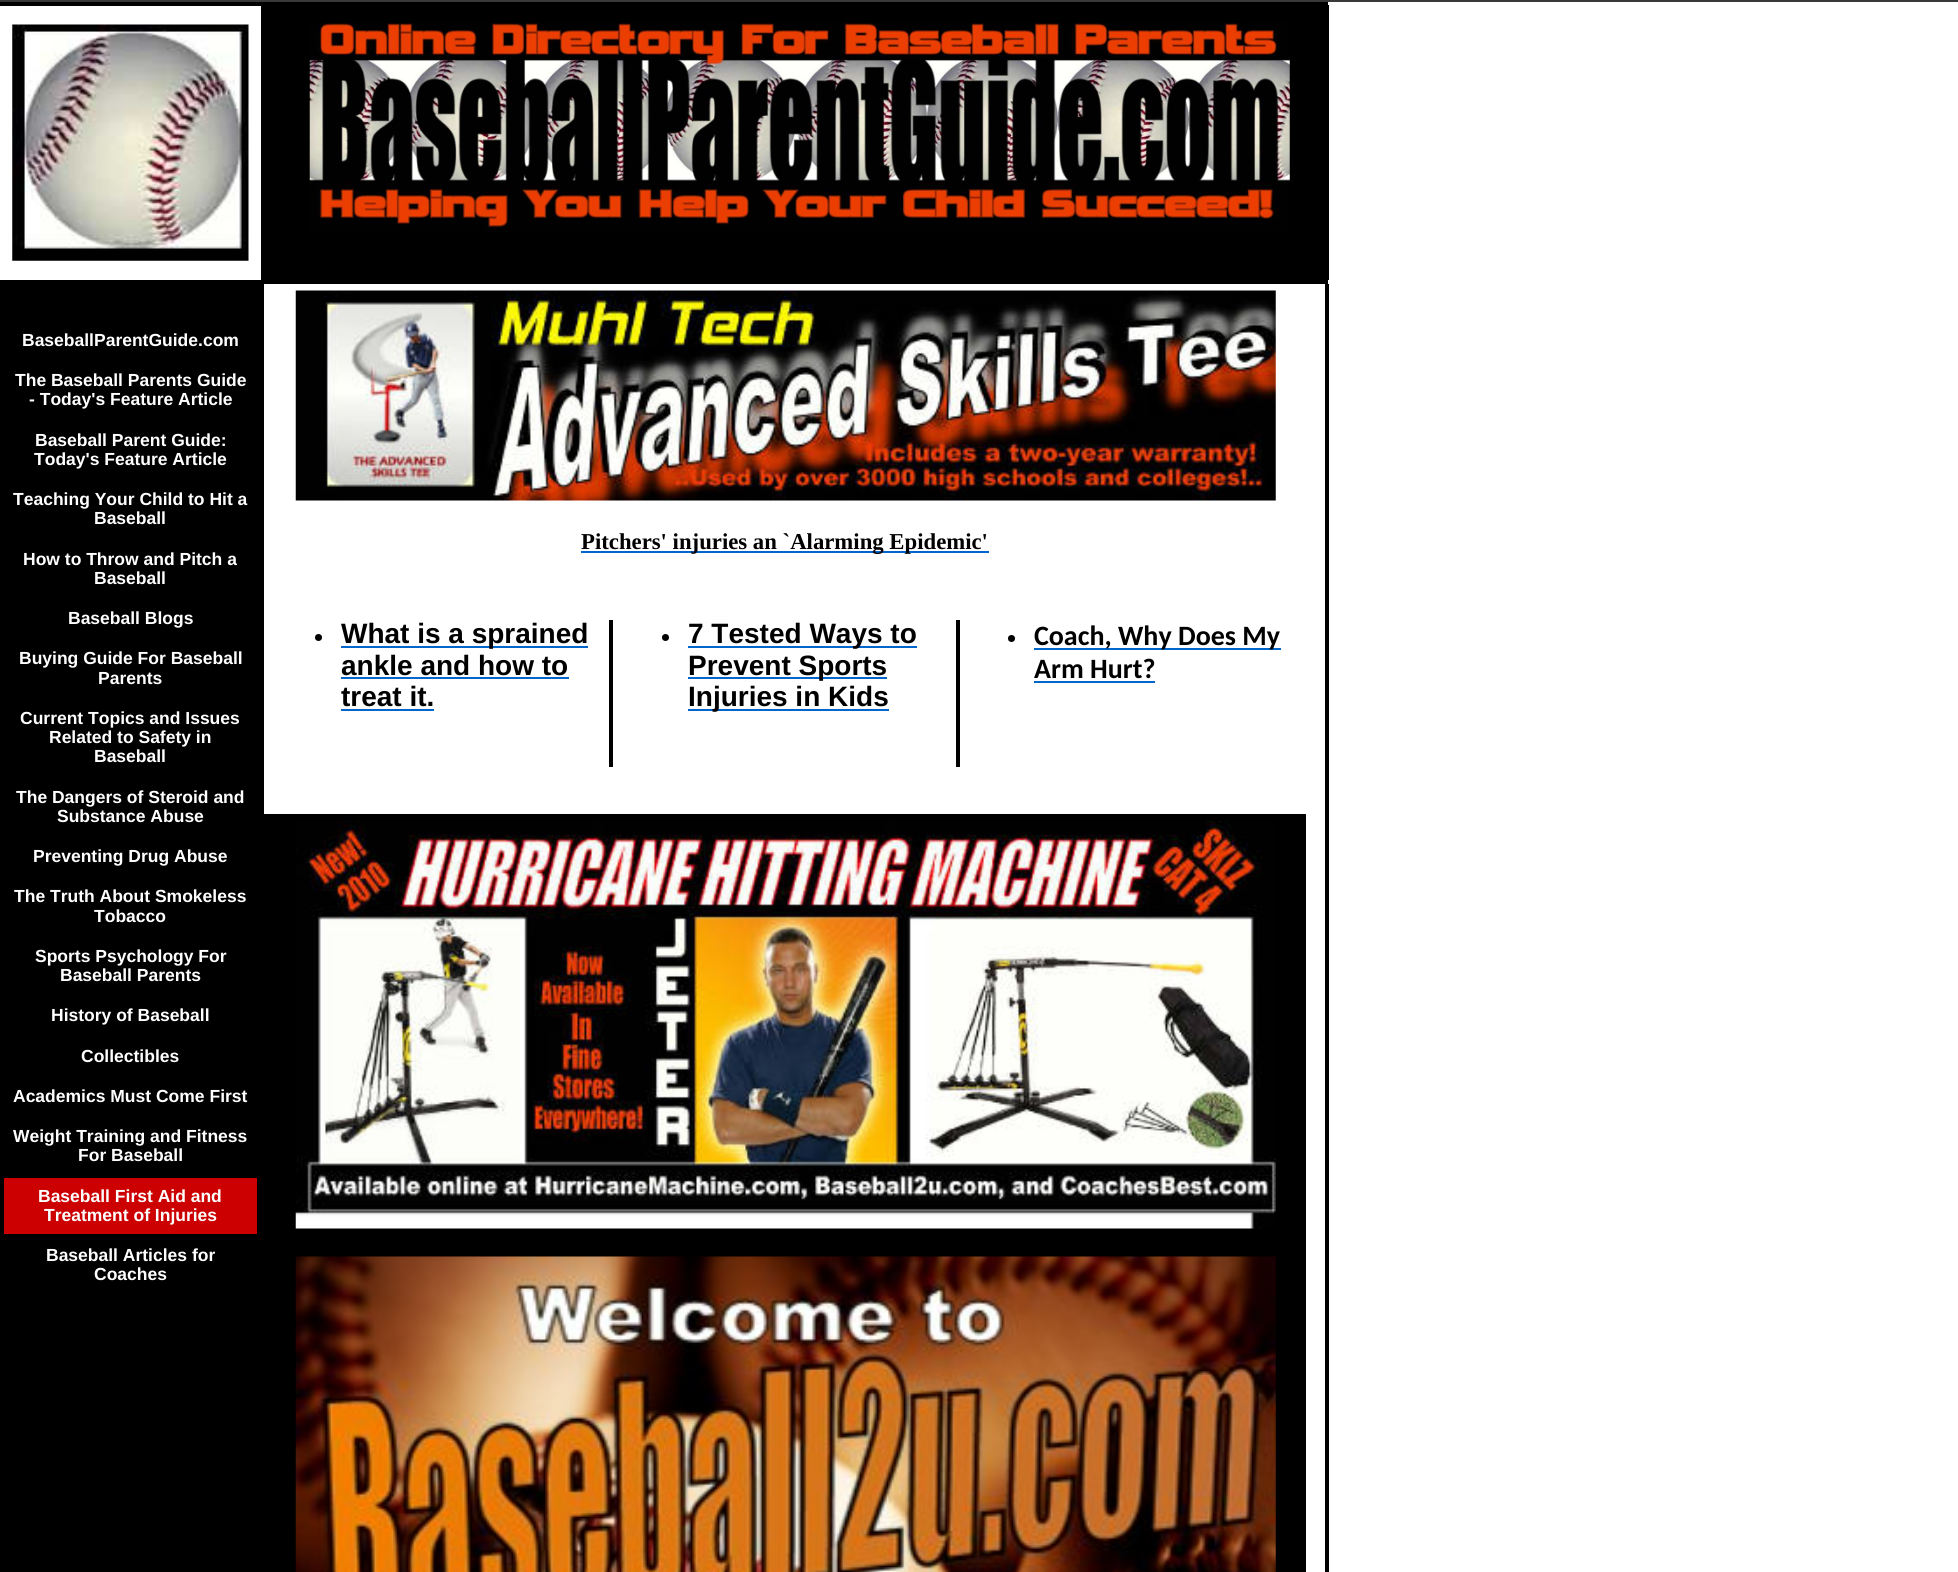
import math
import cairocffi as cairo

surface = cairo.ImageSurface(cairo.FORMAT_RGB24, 1958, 1572)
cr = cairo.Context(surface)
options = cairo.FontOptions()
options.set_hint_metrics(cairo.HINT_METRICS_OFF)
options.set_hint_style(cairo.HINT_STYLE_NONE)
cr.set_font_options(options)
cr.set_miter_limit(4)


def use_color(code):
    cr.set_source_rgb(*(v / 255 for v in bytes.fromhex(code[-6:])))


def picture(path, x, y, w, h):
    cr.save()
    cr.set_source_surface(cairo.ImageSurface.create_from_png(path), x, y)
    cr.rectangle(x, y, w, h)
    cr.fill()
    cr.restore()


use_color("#ffffff")
cr.paint()
use_color("#393939")
cr.rectangle(0, 0, 1958, 2)
cr.fill()
use_color("#000000")
cr.rectangle(0, 2, 261, 4)
cr.fill()
cr.rectangle(261, 2, 1067, 3)
cr.fill()
cr.rectangle(261, 5, 1068, 275)
cr.fill()
picture("img1.png", 12, 24, 237, 237)
picture("img2.png", 309, 22, 981, 211)
cr.rectangle(0, 280, 1328, 4)
cr.fill()
cr.rectangle(0, 284, 264, 1288)
cr.fill()
cr.select_font_face("Liberation Sans", cairo.FONT_SLANT_NORMAL, cairo.FONT_WEIGHT_BOLD)
cr.set_font_size(17.5)
use_color("#ffffff")
cr.move_to(22, 346)
cr.show_text("BaseballParentGuide.com")
cr.move_to(15, 386)
cr.show_text("The Baseball Parents Guide")
cr.move_to(29, 405)
cr.show_text("- Today's Feature Article")
cr.move_to(35, 446)
cr.show_text("Baseball Parent Guide:")
cr.move_to(34, 465)
cr.show_text("Today's Feature Article")
cr.move_to(13, 505)
cr.show_text("Teaching Your Child to Hit a")
cr.move_to(94, 524)
cr.show_text("Baseball")
cr.move_to(23, 565)
cr.show_text("How to Throw and Pitch a")
cr.move_to(94, 584)
cr.show_text("Baseball")
cr.move_to(68, 624)
cr.show_text("Baseball Blogs")
cr.move_to(19, 664)
cr.show_text("Buying Guide For Baseball")
cr.move_to(98, 684)
cr.show_text("Parents")
cr.move_to(20, 724)
cr.show_text("Current Topics and Issues")
cr.move_to(49, 743)
cr.show_text("Related to Safety in")
cr.move_to(94, 762)
cr.show_text("Baseball")
cr.move_to(16, 803)
cr.show_text("The Dangers of Steroid and")
cr.move_to(57, 822)
cr.show_text("Substance Abuse")
cr.move_to(33, 862)
cr.show_text("Preventing Drug Abuse")
cr.move_to(14, 902)
cr.show_text("The Truth About Smokeless")
cr.move_to(94, 922)
cr.show_text("Tobacco")
cr.move_to(35, 962)
cr.show_text("Sports Psychology For")
cr.move_to(60, 981)
cr.show_text("Baseball Parents")
cr.move_to(51, 1021)
cr.show_text("History of Baseball")
cr.move_to(81, 1062)
cr.show_text("Collectibles")
cr.move_to(13, 1102)
cr.show_text("Academics Must Come First")
cr.move_to(13, 1142)
cr.show_text("Weight Training and Fitness")
cr.move_to(78, 1161)
cr.show_text("For Baseball")
use_color("#cc0000")
cr.rectangle(4, 1178, 253, 56)
cr.fill()
use_color("#ffffff")
cr.move_to(38, 1202)
cr.show_text("Baseball First Aid and")
cr.move_to(44, 1221)
cr.show_text("Treatment of Injuries")
cr.move_to(46, 1261)
cr.show_text("Baseball Articles for")
cr.move_to(94, 1280)
cr.show_text("Coaches")
picture("img3.png", 295, 290, 981, 211)
use_color("#0066cc")
cr.rectangle(581, 551, 408, 2)
cr.fill()
cr.select_font_face("Liberation Serif", cairo.FONT_SLANT_NORMAL, cairo.FONT_WEIGHT_BOLD)
cr.set_font_size(22.75)
use_color("#000000")
cr.move_to(581, 549)
cr.show_text("Pitchers' injuries an `Alarming Epidemic'")
cr.new_path()
cr.arc(318.5, 637.5, 3.5, 0, 2 * math.pi)
cr.fill()
use_color("#0066cc")
cr.rectangle(341, 646, 247, 2)
cr.fill()
cr.select_font_face("Liberation Sans", cairo.FONT_SLANT_NORMAL, cairo.FONT_WEIGHT_BOLD)
cr.set_font_size(28)
use_color("#000000")
cr.move_to(341, 643)
cr.show_text("What is a sprained")
cr.move_to(341, 675)
cr.show_text("ankle and how to")
use_color("#0066cc")
cr.rectangle(341, 677, 228, 2)
cr.fill()
use_color("#000000")
cr.move_to(341, 706)
cr.show_text("treat it.")
use_color("#0066cc")
cr.rectangle(341, 709, 93, 2)
cr.fill()
use_color("#000000")
cr.rectangle(609, 620, 4, 147)
cr.fill()
cr.arc(665.5, 637.5, 3.5, 0, 2 * math.pi)
cr.fill()
use_color("#0066cc")
cr.rectangle(688, 646, 229, 2)
cr.fill()
use_color("#000000")
cr.move_to(688, 643)
cr.show_text("7 Tested Ways to")
use_color("#0066cc")
cr.rectangle(688, 677, 199, 2)
cr.fill()
use_color("#000000")
cr.move_to(688, 675)
cr.show_text("Prevent Sports")
use_color("#0066cc")
cr.rectangle(688, 709, 201, 2)
cr.fill()
use_color("#000000")
cr.move_to(688, 706)
cr.show_text("Injuries in Kids")
cr.rectangle(956, 620, 4, 147)
cr.fill()
cr.arc(1011.5, 638.5, 3.5, 0, 2 * math.pi)
cr.fill()
use_color("#0066cc")
cr.rectangle(1034, 648, 247, 2)
cr.fill()
cr.select_font_face("Carlito", cairo.FONT_SLANT_NORMAL, cairo.FONT_WEIGHT_BOLD)
use_color("#000000")
cr.move_to(1034, 645)
cr.show_text("Coach, Why Does My")
cr.move_to(1034, 678)
cr.show_text("Arm Hurt?")
use_color("#0066cc")
cr.rectangle(1034, 681, 121, 2)
cr.fill()
use_color("#000000")
cr.rectangle(264, 814, 1042, 758)
cr.fill()
picture("img4.png", 295, 820, 981, 409)
picture("img5.png", 295, 1256, 981, 316)
cr.rectangle(1325, 284, 4, 1288)
cr.fill()
surface.write_to_png("result.png")
